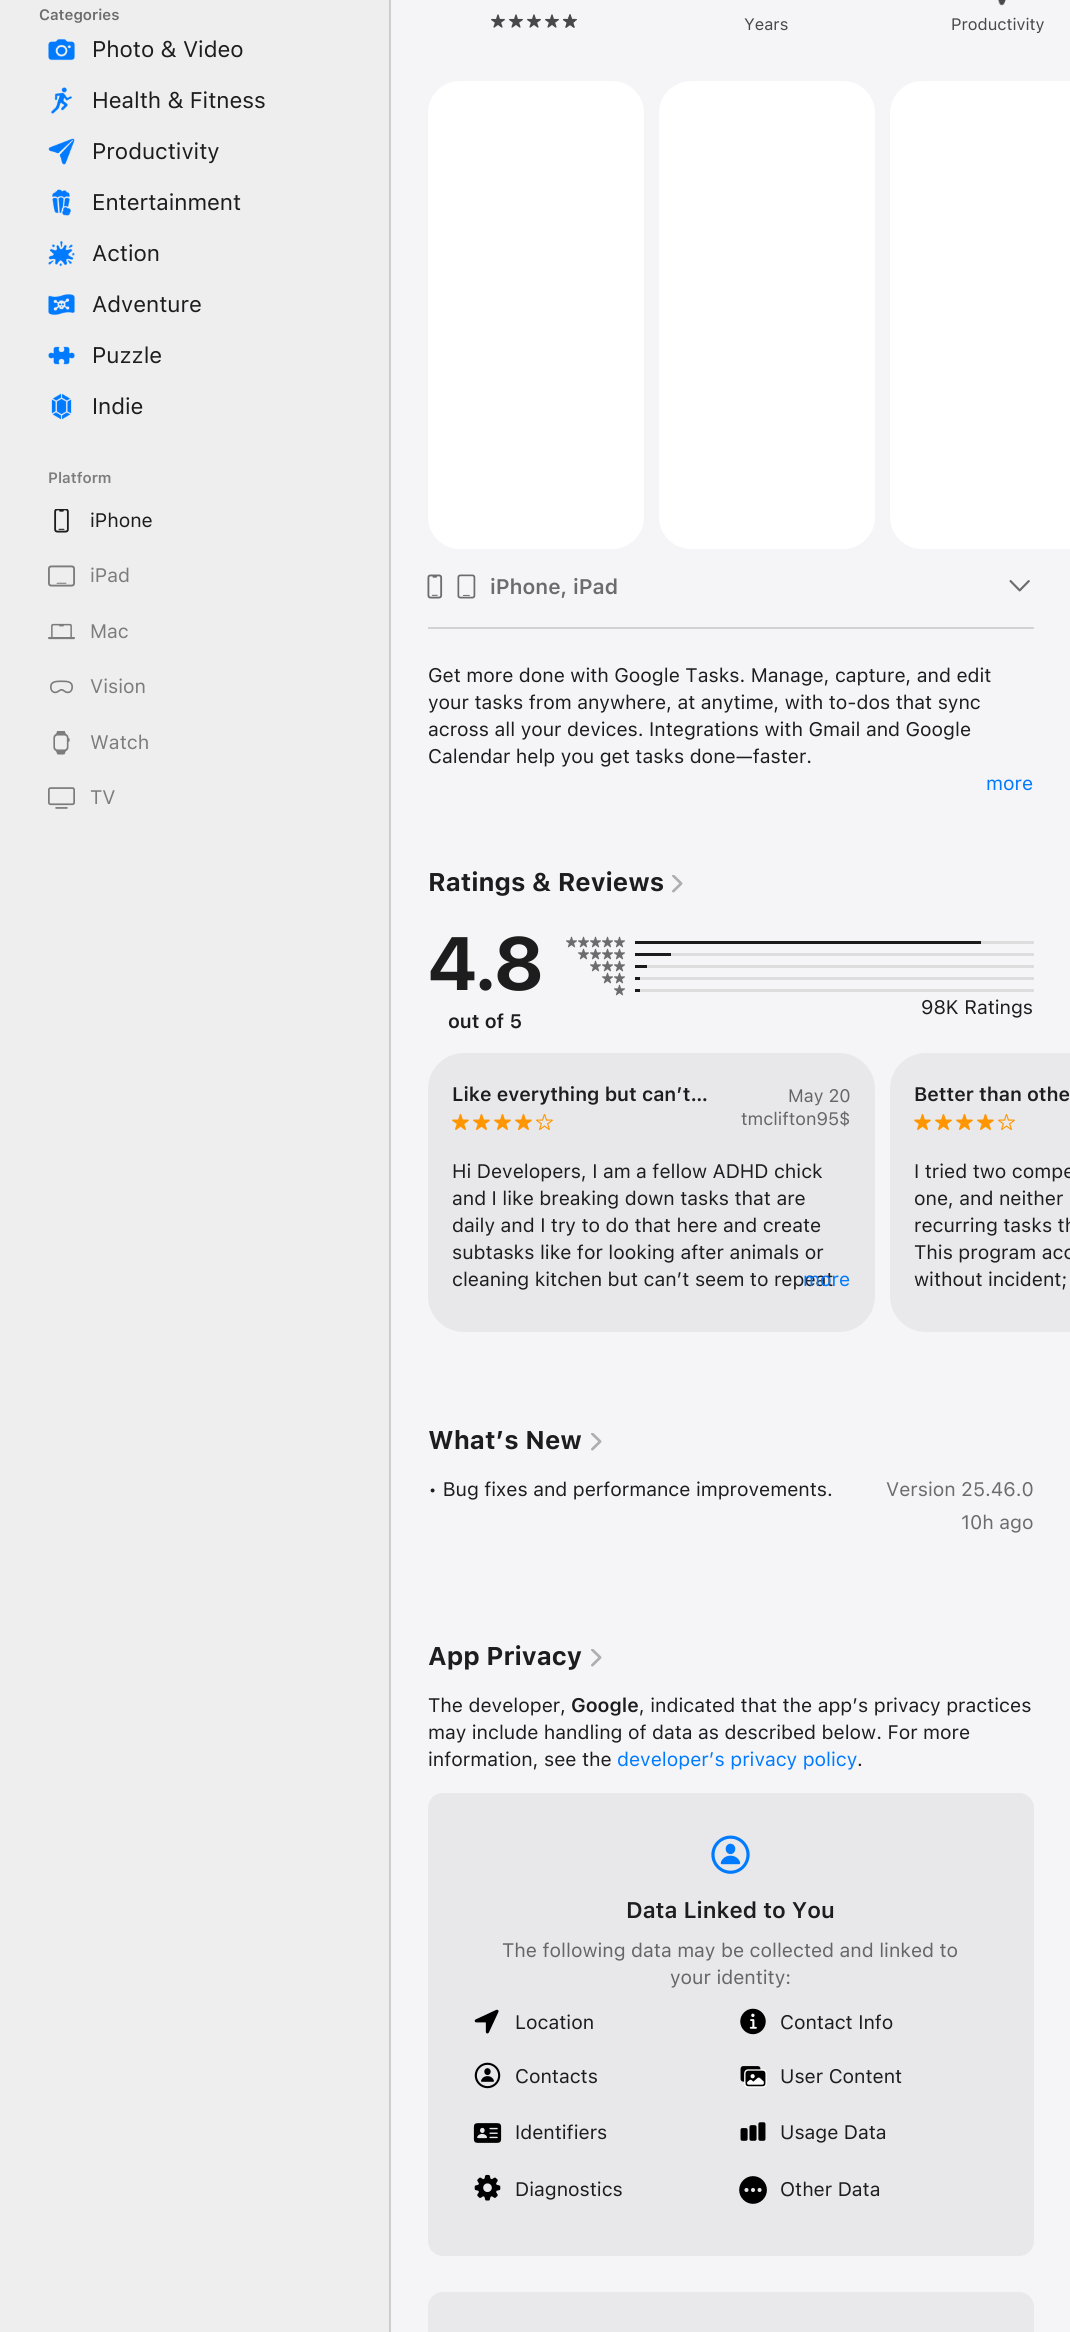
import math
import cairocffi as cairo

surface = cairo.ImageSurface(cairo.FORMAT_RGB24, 1070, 2332)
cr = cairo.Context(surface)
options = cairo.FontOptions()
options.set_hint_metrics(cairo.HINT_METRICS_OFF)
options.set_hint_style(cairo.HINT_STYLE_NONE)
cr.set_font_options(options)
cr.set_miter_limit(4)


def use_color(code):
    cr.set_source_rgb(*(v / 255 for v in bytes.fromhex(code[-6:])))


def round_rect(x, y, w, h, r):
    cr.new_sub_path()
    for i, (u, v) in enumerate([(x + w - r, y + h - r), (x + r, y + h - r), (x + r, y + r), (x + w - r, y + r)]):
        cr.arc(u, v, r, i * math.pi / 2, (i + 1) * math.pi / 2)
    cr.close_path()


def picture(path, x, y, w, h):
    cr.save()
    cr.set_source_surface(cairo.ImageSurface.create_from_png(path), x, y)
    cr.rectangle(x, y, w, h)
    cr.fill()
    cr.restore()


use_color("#f5f5f7")
cr.paint()
use_color("#d0d0d2")
cr.rectangle(390, 0, 1, 2332)
cr.fill()
use_color("#eeeeef")
cr.rectangle(0, 0, 389, 2332)
cr.fill()
use_color("#cacacb")
cr.rectangle(389, 0, 1, 2332)
cr.fill()
cr.select_font_face("SF SemiBold")
cr.set_font_size(15)
use_color("#6c6c6d")
cr.move_to(39, 20)
cr.show_text("Categories")
picture("img1.png", 48, 38, 27, 23)
cr.select_font_face("SF")
cr.set_font_size(22.5)
use_color("#1d1d1e")
cr.move_to(92, 57)
cr.show_text("Photo & Video")
picture("img2.png", 51, 87, 22, 27)
cr.move_to(92, 108)
cr.show_text("Health & Fitness")
picture("img3.png", 48, 138, 27, 27)
cr.move_to(92, 159)
cr.show_text("Productivity")
picture("img4.png", 52, 189, 19, 27)
cr.move_to(92, 210)
cr.show_text("Entertainment")
picture("img5.png", 48, 240, 27, 27)
cr.move_to(92, 261)
cr.show_text("Action")
picture("img6.png", 48, 294, 27, 22)
cr.move_to(92, 312)
cr.show_text("Adventure")
picture("img7.png", 48, 346, 27, 19)
cr.move_to(92, 363)
cr.show_text("Puzzle")
picture("img8.png", 51, 393, 21, 27)
cr.move_to(92, 414)
cr.show_text("Indie")
cr.select_font_face("SF SemiBold")
cr.set_font_size(15)
use_color("#7c7c7c")
cr.move_to(48, 483)
cr.show_text("Platform")
picture("img9.png", 54, 509, 15, 24)
cr.select_font_face("SF")
cr.set_font_size(19.5)
use_color("#1d1d1e")
cr.move_to(90, 527)
cr.show_text("iPhone")
picture("img10.png", 48, 565, 27, 22)
use_color("#7c7c7c")
cr.move_to(90, 582)
cr.show_text("iPad")
picture("img11.png", 48, 623, 27, 17)
cr.move_to(90, 638)
cr.show_text("Mac")
picture("img12.png", 50, 680, 23, 14)
cr.move_to(90, 693)
cr.show_text("Vision")
picture("img13.png", 53, 731, 17, 24)
cr.move_to(90, 749)
cr.show_text("Watch")
picture("img14.png", 48, 787, 27, 22)
cr.move_to(90, 804)
cr.show_text("TV")
picture("img15.png", 491, 14, 14, 14)
picture("img15.png", 509, 14, 14, 14)
picture("img15.png", 527, 14, 14, 14)
picture("img15.png", 545, 14, 14, 14)
picture("img16.png", 563, 14, 14, 14)
picture("img17.png", 563, 14, 12, 14)
cr.set_font_size(16.5)
use_color("#48484a")
cr.move_to(744, 30)
cr.show_text("Years")
picture("img18.png", 998, 0, 8, 6)
cr.move_to(951, 30)
cr.show_text("Productivity")
use_color("#ffffff")
round_rect(428, 81, 216, 468, 32)
cr.fill()
round_rect(659, 81, 216, 468, 32)
cr.fill()
cr.new_path()
cr.move_to(922, 81)
cr.line_to(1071, 81)
cr.line_to(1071, 549)
cr.line_to(922, 549)
cr.curve_to(904.5, 549, 890, 534.5, 890, 517)
cr.line_to(890, 113)
cr.curve_to(890, 95.5, 904.5, 81, 922, 81)
cr.close_path()
cr.fill()
picture("img19.png", 427, 574, 16, 25)
picture("img20.png", 457, 574, 19, 25)
cr.select_font_face("SF SemiBold")
cr.set_font_size(21)
use_color("#6c6c6d")
cr.move_to(490, 594)
cr.show_text("iPhone, iPad")
picture("img21.png", 1009, 580, 21, 12)
use_color("#d1d1d6")
cr.rectangle(428, 627, 606, 2)
cr.fill()
cr.select_font_face("SF")
cr.set_font_size(19.5)
use_color("#1d1d1e")
cr.move_to(428, 682)
cr.show_text("Get more done with Google Tasks. Manage, capture, and edit")
cr.move_to(428, 709)
cr.show_text("your tasks from anywhere, at anytime, with to-dos that sync")
cr.move_to(428, 736)
cr.show_text("across all your devices. Integrations with Gmail and Google")
cr.move_to(428, 763)
cr.show_text("Calendar help you get tasks done—faster.")
use_color("#007aff")
cr.move_to(986, 790)
cr.show_text("more")
cr.select_font_face("SF", cairo.FONT_SLANT_NORMAL, cairo.FONT_WEIGHT_BOLD)
cr.set_font_size(25.5)
use_color("#1d1d1e")
cr.move_to(428, 891)
cr.show_text("Ratings & Reviews")
picture("img22.png", 672, 875, 11, 18)
cr.select_font_face("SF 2", cairo.FONT_SLANT_NORMAL, cairo.FONT_WEIGHT_BOLD)
cr.set_font_size(75)
cr.move_to(428, 990)
cr.show_text("4.8")
cr.select_font_face("SF SemiBold")
cr.set_font_size(19.5)
cr.move_to(448, 1028)
cr.show_text("out of 5")
picture("img23.png", 566, 936, 11, 12)
picture("img23.png", 578, 936, 11, 12)
picture("img23.png", 590, 936, 11, 12)
picture("img23.png", 602, 936, 11, 12)
picture("img23.png", 614, 936, 11, 12)
use_color("#ddddde")
cr.rectangle(981, 941, 53, 3)
cr.fill()
use_color("#1b1b1b")
cr.rectangle(635, 941, 346, 3)
cr.fill()
picture("img23.png", 578, 948, 11, 12)
picture("img23.png", 590, 948, 11, 12)
picture("img23.png", 602, 948, 11, 12)
picture("img23.png", 614, 948, 11, 12)
use_color("#ddddde")
cr.rectangle(671, 953, 363, 3)
cr.fill()
use_color("#1b1b1b")
cr.rectangle(635, 953, 36, 3)
cr.fill()
picture("img23.png", 590, 960, 11, 12)
picture("img23.png", 602, 960, 11, 12)
picture("img23.png", 614, 960, 11, 12)
use_color("#ddddde")
cr.rectangle(647, 965, 387, 3)
cr.fill()
use_color("#1b1b1b")
cr.rectangle(635, 965, 12, 3)
cr.fill()
picture("img23.png", 602, 972, 11, 12)
picture("img23.png", 614, 972, 11, 12)
use_color("#ddddde")
cr.rectangle(635, 977, 399, 3)
cr.fill()
use_color("#1b1b1b")
cr.rectangle(635, 977, 5, 3)
cr.fill()
picture("img23.png", 614, 984, 11, 12)
use_color("#ddddde")
cr.rectangle(635, 989, 399, 3)
cr.fill()
use_color("#1b1b1b")
cr.rectangle(635, 989, 5, 3)
cr.fill()
cr.select_font_face("SF")
use_color("#1d1d1e")
cr.move_to(921, 1014)
cr.show_text("98K Ratings")
use_color("#e8e8eb")
round_rect(428, 1053, 447, 279, 36)
cr.fill()
cr.select_font_face("SF SemiBold")
use_color("#1d1d1e")
cr.move_to(452, 1101)
cr.show_text("Like everything but can’t…")
picture("img24.png", 452, 1114, 17, 16)
picture("img24.png", 473, 1114, 17, 16)
picture("img24.png", 494, 1114, 17, 16)
picture("img24.png", 515, 1114, 17, 16)
picture("img25.png", 536, 1114, 17, 16)
cr.select_font_face("SF")
cr.set_font_size(18)
use_color("#666667")
cr.move_to(788, 1102)
cr.show_text("May 20")
cr.move_to(741, 1125)
cr.show_text("tmclifton95$")
cr.set_font_size(19.5)
use_color("#1d1d1e")
cr.move_to(452, 1178)
cr.show_text("Hi Developers, I am a fellow ADHD chick")
cr.move_to(452, 1205)
cr.show_text("and I like breaking down tasks that are")
cr.move_to(452, 1232)
cr.show_text("daily and I try to do that here and create")
cr.move_to(452, 1259)
cr.show_text("subtasks like for looking after animals or")
cr.move_to(452, 1286)
cr.show_text("cleaning kitchen but can’t seem to repeat")
use_color("#007aff")
cr.move_to(803, 1286)
cr.show_text("more")
use_color("#e9e9eb")
cr.new_path()
cr.move_to(926, 1053)
cr.line_to(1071, 1053)
cr.line_to(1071, 1332)
cr.line_to(926, 1332)
cr.curve_to(906, 1332, 890, 1316, 890, 1296)
cr.line_to(890, 1089)
cr.curve_to(890, 1069, 906, 1053, 926, 1053)
cr.close_path()
cr.fill()
cr.select_font_face("SF SemiBold")
use_color("#1d1d1e")
cr.move_to(914, 1101)
cr.show_text("Better than othe")
picture("img26.png", 914, 1114, 17, 16)
picture("img26.png", 935, 1114, 17, 16)
picture("img26.png", 956, 1114, 17, 16)
picture("img26.png", 977, 1114, 17, 16)
picture("img27.png", 998, 1114, 17, 16)
cr.select_font_face("SF")
cr.move_to(914, 1178)
cr.show_text("I tried two compe")
cr.move_to(914, 1205)
cr.show_text("one, and neither")
cr.move_to(914, 1232)
cr.show_text("recurring tasks th")
cr.move_to(914, 1259)
cr.show_text("This program acc")
cr.move_to(914, 1286)
cr.show_text("without incident;")
cr.select_font_face("SF", cairo.FONT_SLANT_NORMAL, cairo.FONT_WEIGHT_BOLD)
cr.set_font_size(25.5)
cr.move_to(428, 1449)
cr.show_text("What’s New")
picture("img22.png", 591, 1433, 11, 18)
cr.select_font_face("SF")
cr.set_font_size(19.5)
cr.move_to(428, 1496)
cr.show_text("• Bug fixes and performance improvements.")
use_color("#6c6c6d")
cr.move_to(886, 1496)
cr.show_text("Version 25.46.0")
cr.move_to(961, 1529)
cr.show_text("10h ago")
cr.select_font_face("SF", cairo.FONT_SLANT_NORMAL, cairo.FONT_WEIGHT_BOLD)
cr.set_font_size(25.5)
use_color("#1d1d1e")
cr.move_to(428, 1665)
cr.show_text("App Privacy")
picture("img22.png", 591, 1649, 11, 18)
cr.select_font_face("SF")
cr.set_font_size(19.5)
cr.move_to(428, 1712)
cr.show_text("The developer,")
cr.select_font_face("SF SemiBold")
cr.move_to(571, 1712)
cr.show_text("Google")
cr.select_font_face("SF")
cr.move_to(639, 1712)
cr.show_text(", indicated that the app’s privacy practices")
cr.move_to(428, 1739)
cr.show_text("may include handling of data as described below. For more")
cr.move_to(428, 1766)
cr.show_text("information, see the")
use_color("#007aff")
cr.move_to(617, 1766)
cr.show_text("developer’s privacy policy")
use_color("#1d1d1e")
cr.move_to(857, 1766)
cr.show_text(".")
use_color("#e8e8eb")
round_rect(428, 1793, 606, 463, 15)
cr.fill()
picture("img28.png", 711, 1835, 39, 39)
cr.select_font_face("SF SemiBold")
cr.set_font_size(22.5)
use_color("#1d1d1e")
cr.move_to(626, 1918)
cr.show_text("Data Linked to You")
cr.select_font_face("SF")
cr.set_font_size(19.5)
use_color("#666667")
cr.move_to(502, 1957)
cr.show_text("The following data may be collected and linked to")
cr.move_to(670, 1984)
cr.show_text("your identity:")
picture("img29.png", 474, 2009, 25, 25)
use_color("#1d1d1e")
cr.move_to(515, 2029)
cr.show_text("Location")
picture("img30.png", 740, 2008, 26, 27)
cr.move_to(780, 2029)
cr.show_text("Contact Info")
picture("img31.png", 474, 2062, 27, 27)
cr.move_to(515, 2083)
cr.show_text("Contacts")
picture("img32.png", 740, 2066, 27, 22)
cr.move_to(780, 2083)
cr.show_text("User Content")
picture("img33.png", 473, 2123, 29, 20)
cr.move_to(515, 2139)
cr.show_text("Identifiers")
picture("img34.png", 740, 2122, 26, 19)
cr.move_to(780, 2139)
cr.show_text("Usage Data")
picture("img35.png", 474, 2174, 27, 27)
cr.move_to(515, 2196)
cr.show_text("Diagnostics")
picture("img36.png", 739, 2176, 28, 28)
cr.move_to(780, 2196)
cr.show_text("Other Data")
use_color("#e9e9eb")
round_rect(428, 2292, 606, 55, 15)
cr.fill()
surface.write_to_png("result.png")
